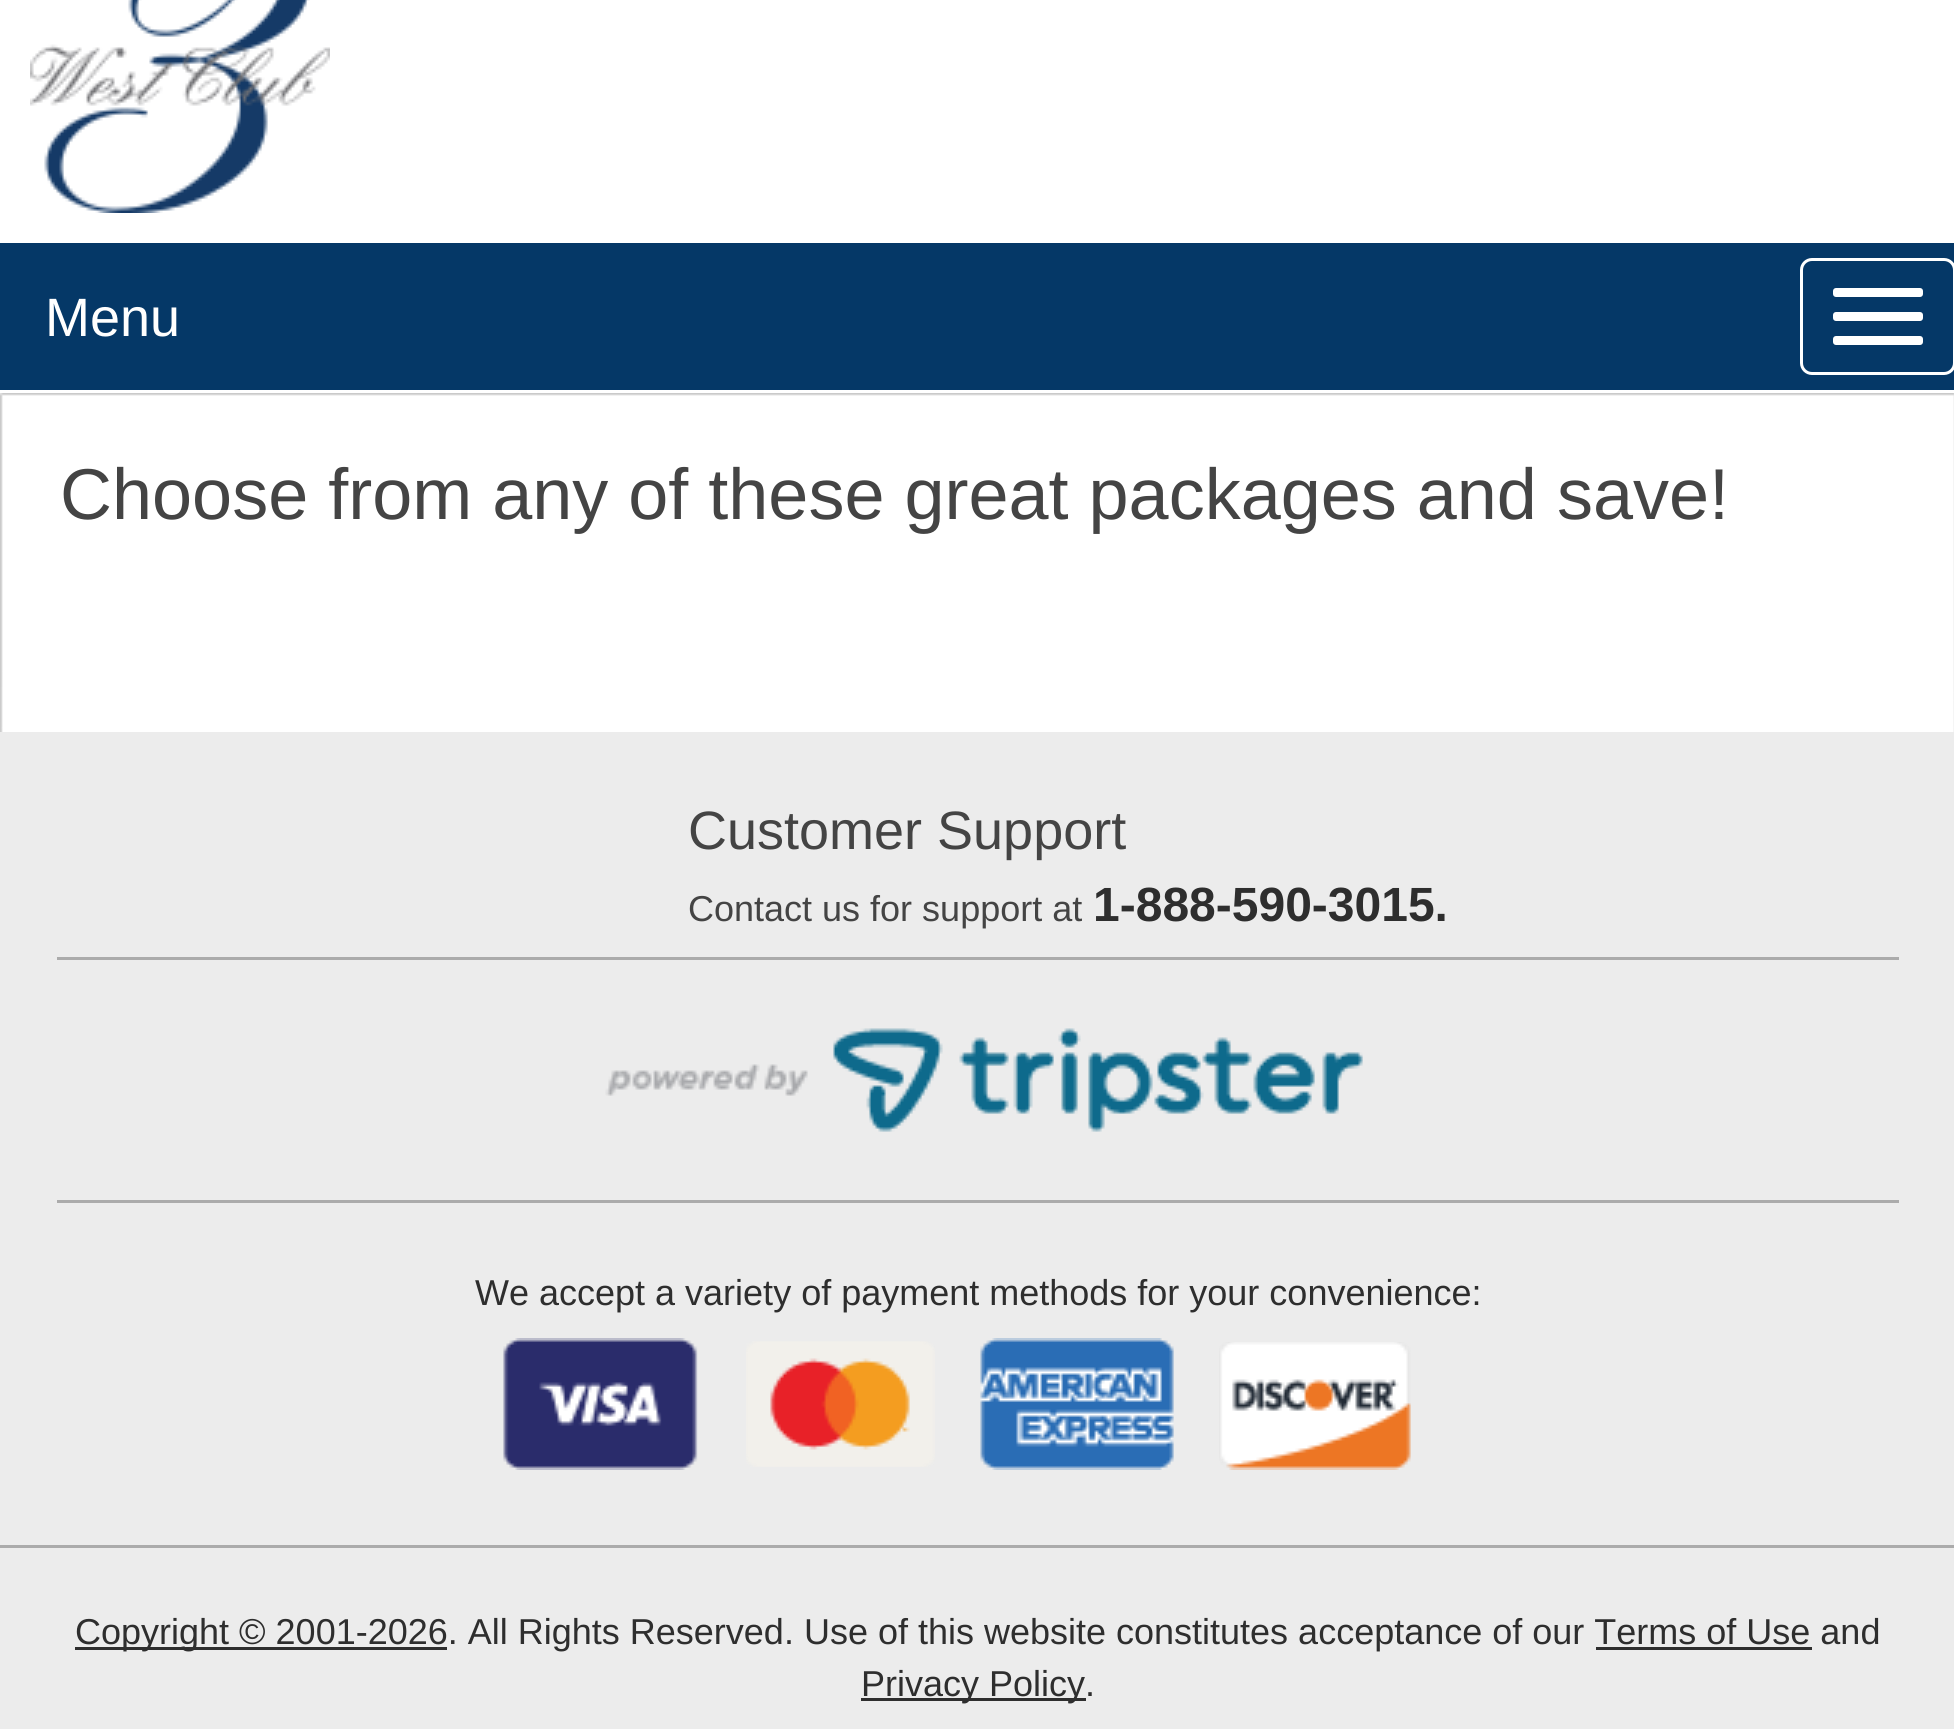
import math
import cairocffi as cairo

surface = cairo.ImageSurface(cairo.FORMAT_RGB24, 1954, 1729)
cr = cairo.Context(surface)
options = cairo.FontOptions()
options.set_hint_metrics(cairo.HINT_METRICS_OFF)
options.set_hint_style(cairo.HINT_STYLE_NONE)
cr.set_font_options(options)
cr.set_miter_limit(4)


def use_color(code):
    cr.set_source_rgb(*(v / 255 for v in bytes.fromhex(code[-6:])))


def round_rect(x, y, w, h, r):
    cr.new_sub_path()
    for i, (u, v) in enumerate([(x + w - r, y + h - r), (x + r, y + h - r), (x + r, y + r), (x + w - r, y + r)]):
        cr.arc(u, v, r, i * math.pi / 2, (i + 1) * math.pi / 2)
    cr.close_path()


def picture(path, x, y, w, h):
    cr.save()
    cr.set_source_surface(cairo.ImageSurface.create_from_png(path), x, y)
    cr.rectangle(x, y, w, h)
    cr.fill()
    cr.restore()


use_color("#ffffff")
cr.paint()
picture("img1.png", 30, 0, 300, 213)
use_color("#053867")
cr.rectangle(0, 243, 1954, 147)
cr.fill()
cr.select_font_face("Liberation Sans")
cr.set_font_size(54)
use_color("#ffffff")
cr.move_to(45, 336)
cr.show_text("Menu")
round_rect(1801.5, 259.5, 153, 114, 10.5)
cr.set_line_width(3)
cr.stroke()
round_rect(1833, 288, 90, 9, 3)
cr.fill()
round_rect(1833, 312, 90, 9, 3)
cr.fill()
round_rect(1833, 336, 90, 9, 3)
cr.fill()
picture("img2.png", 0, 393, 1954, 339)
cr.set_font_size(72)
use_color("#444444")
cr.move_to(60, 519)
cr.show_text("Choose from any of these great packages and save!")
use_color("#ececec")
cr.rectangle(0, 732, 1954, 997)
cr.fill()
cr.set_font_size(54)
use_color("#444444")
cr.move_to(688, 849)
cr.show_text("Customer Support")
cr.set_font_size(36)
cr.move_to(688, 921)
cr.show_text("Contact us for support at")
cr.select_font_face("Liberation Sans", cairo.FONT_SLANT_NORMAL, cairo.FONT_WEIGHT_BOLD)
cr.set_font_size(48)
use_color("#2e2e2e")
cr.move_to(1093, 921)
cr.show_text("1-888-590-3015.")
picture("img3.png", 605, 1028, 758, 104)
use_color("#ababab")
cr.rectangle(57, 957, 1842, 3)
cr.fill()
cr.rectangle(57, 1200, 1842, 3)
cr.fill()
cr.rectangle(0, 1545, 1954, 3)
cr.fill()
cr.select_font_face("Liberation Sans")
cr.set_font_size(36)
use_color("#2e2e2e")
cr.move_to(475, 1305)
cr.show_text("We accept a variety of payment methods for your convenience:")
picture("img4.png", 503, 1338, 195, 132)
picture("img5.png", 746, 1341, 189, 126)
picture("img6.png", 980, 1338, 194, 132)
picture("img7.png", 1219, 1342, 192, 128)
cr.rectangle(75, 1647, 372, 3)
cr.fill()
cr.move_to(75, 1644)
cr.show_text("Copyright © 2001-2026. All Rights Reserved. Use of this website constitutes acceptance of our Terms of Use and")
cr.rectangle(1596, 1647, 216, 3)
cr.fill()
cr.rectangle(861, 1698, 225, 3)
cr.fill()
cr.move_to(861, 1696)
cr.show_text("Privacy Policy.")
surface.write_to_png("result.png")
